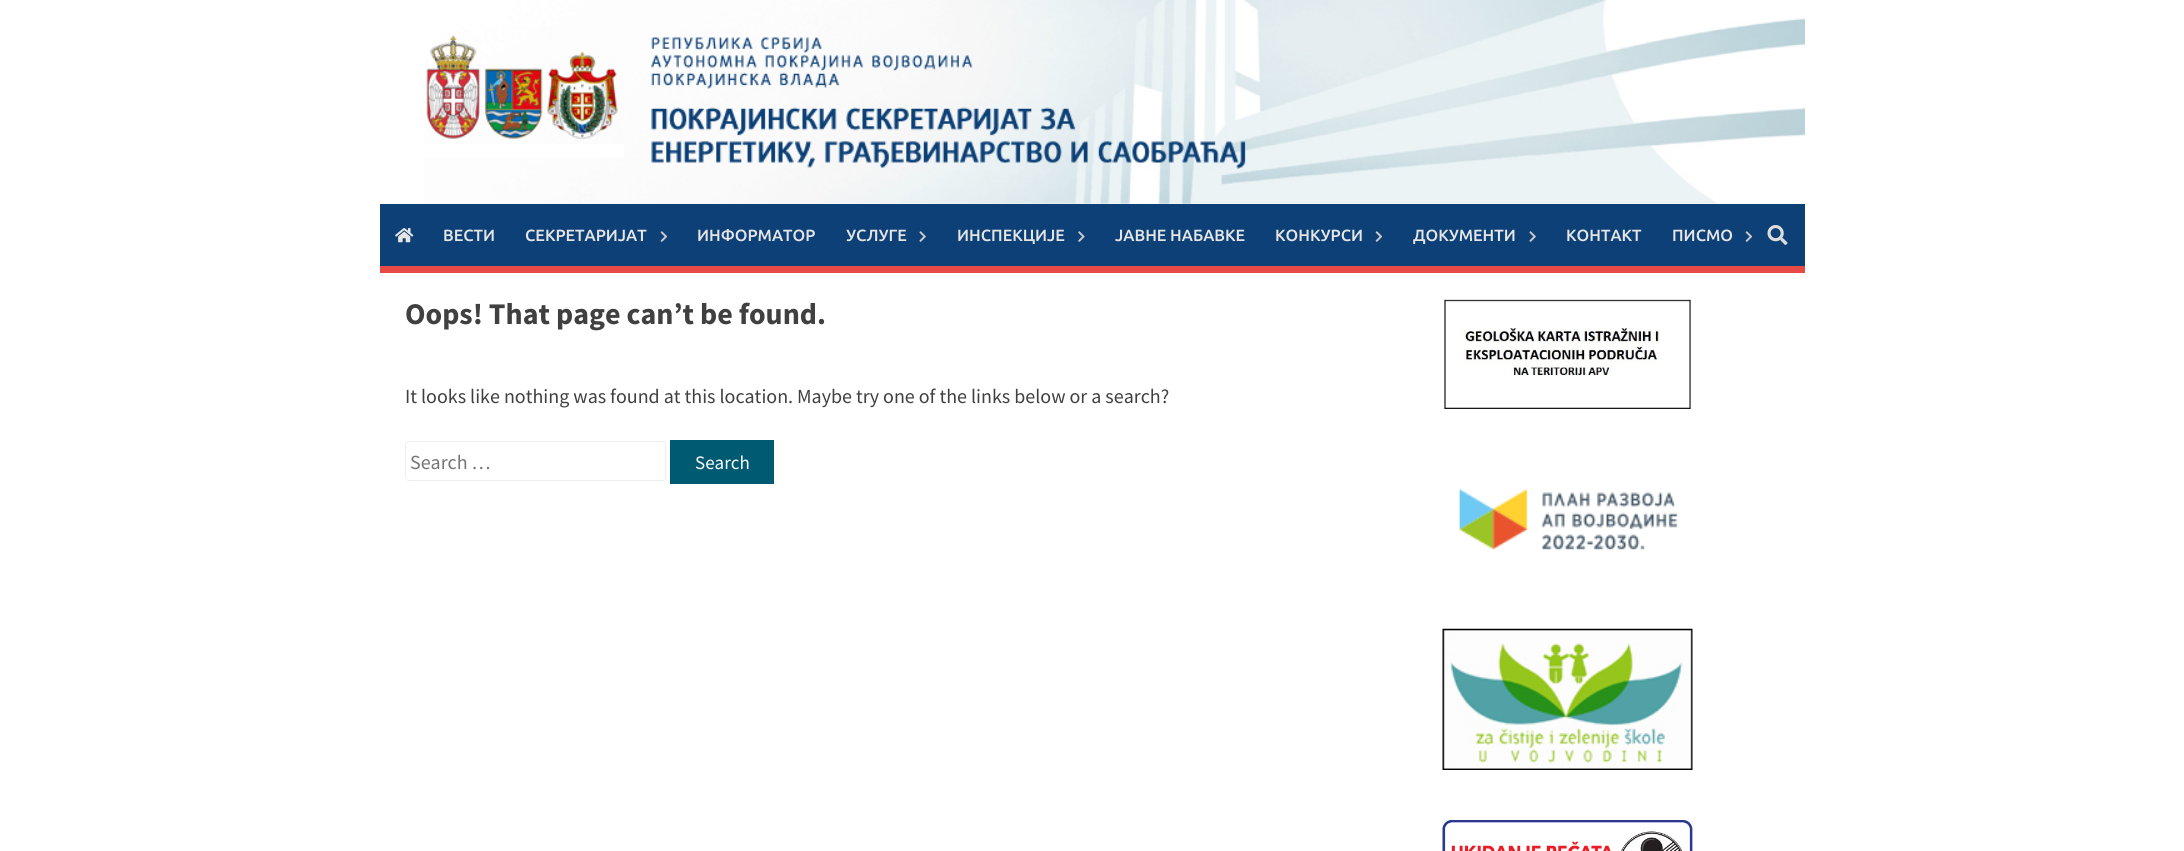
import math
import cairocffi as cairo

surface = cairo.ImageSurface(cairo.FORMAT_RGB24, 2184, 851)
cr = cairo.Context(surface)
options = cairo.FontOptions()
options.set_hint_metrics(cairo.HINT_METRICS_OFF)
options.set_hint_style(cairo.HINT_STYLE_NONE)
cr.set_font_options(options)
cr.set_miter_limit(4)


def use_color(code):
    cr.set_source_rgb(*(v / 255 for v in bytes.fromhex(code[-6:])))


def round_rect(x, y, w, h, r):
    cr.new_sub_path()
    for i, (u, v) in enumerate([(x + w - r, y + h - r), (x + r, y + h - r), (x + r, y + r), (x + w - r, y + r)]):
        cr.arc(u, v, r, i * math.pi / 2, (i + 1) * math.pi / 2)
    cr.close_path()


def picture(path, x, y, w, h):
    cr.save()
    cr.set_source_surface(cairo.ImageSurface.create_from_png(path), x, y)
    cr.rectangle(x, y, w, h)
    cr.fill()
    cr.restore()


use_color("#ffffff")
cr.paint()
picture("img1.png", 423, 0, 1382, 204)
use_color("#0c4076")
cr.rectangle(380, 204, 1425, 62)
cr.fill()
use_color("#e64946")
cr.rectangle(380, 266, 1425, 7)
cr.fill()
picture("img2.png", 395, 228, 19, 15)
cr.select_font_face("Ubuntu Medium")
cr.set_font_size(16.25)
use_color("#e5e5e5")
cr.move_to(443, 241)
cr.show_text("ВЕСТИ")
cr.move_to(525, 241)
cr.show_text("СЕКРЕТАРИЈАТ")
picture("img3.png", 660, 231, 8, 11)
cr.move_to(697, 241)
cr.show_text("ИНФОРМАТОР")
cr.move_to(846, 241)
cr.show_text("УСЛУГЕ")
picture("img4.png", 919, 231, 7, 11)
cr.move_to(957, 241)
cr.show_text("ИНСПЕКЦИЈЕ")
picture("img5.png", 1078, 231, 7, 11)
cr.move_to(1115, 241)
cr.show_text("ЈАВНЕ НАБАВКЕ")
cr.move_to(1275, 241)
cr.show_text("КОНКУРСИ")
picture("img3.png", 1375, 231, 8, 11)
cr.move_to(1413, 241)
cr.show_text("ДОКУМЕНТИ")
picture("img4.png", 1529, 231, 7, 11)
cr.move_to(1566, 241)
cr.show_text("КОНТАКТ")
cr.move_to(1672, 241)
cr.show_text("ПИСМО")
picture("img3.png", 1745, 231, 8, 11)
picture("img6.png", 1767, 225, 21, 20)
cr.select_font_face("Source Sans Pro", cairo.FONT_SLANT_NORMAL, cairo.FONT_WEIGHT_BOLD)
cr.set_font_size(30)
use_color("#404040")
cr.move_to(405, 324)
cr.show_text("Oops! That page can’t be found.")
cr.select_font_face("Source Sans Pro")
cr.set_font_size(20)
cr.move_to(405, 403)
cr.show_text("It looks like nothing was found at this location. Maybe try one of the links below or a search?")
round_rect(405.5, 441.5, 260, 39, 3.5)
use_color("#eeeeee")
cr.set_line_width(1)
cr.stroke()
use_color("#757575")
cr.move_to(410, 469)
cr.show_text("Search …")
use_color("#005b72")
cr.rectangle(670, 440, 104, 44)
cr.fill()
cr.set_font_size(19)
use_color("#ffffff")
cr.move_to(695, 469)
cr.show_text("Search")
picture("img7.png", 1444, 299, 247, 110)
picture("img8.png", 1459, 489, 219, 61)
picture("img9.png", 1442, 628, 251, 142)
picture("img10.png", 1442, 820, 251, 31)
surface.write_to_png("result.png")
